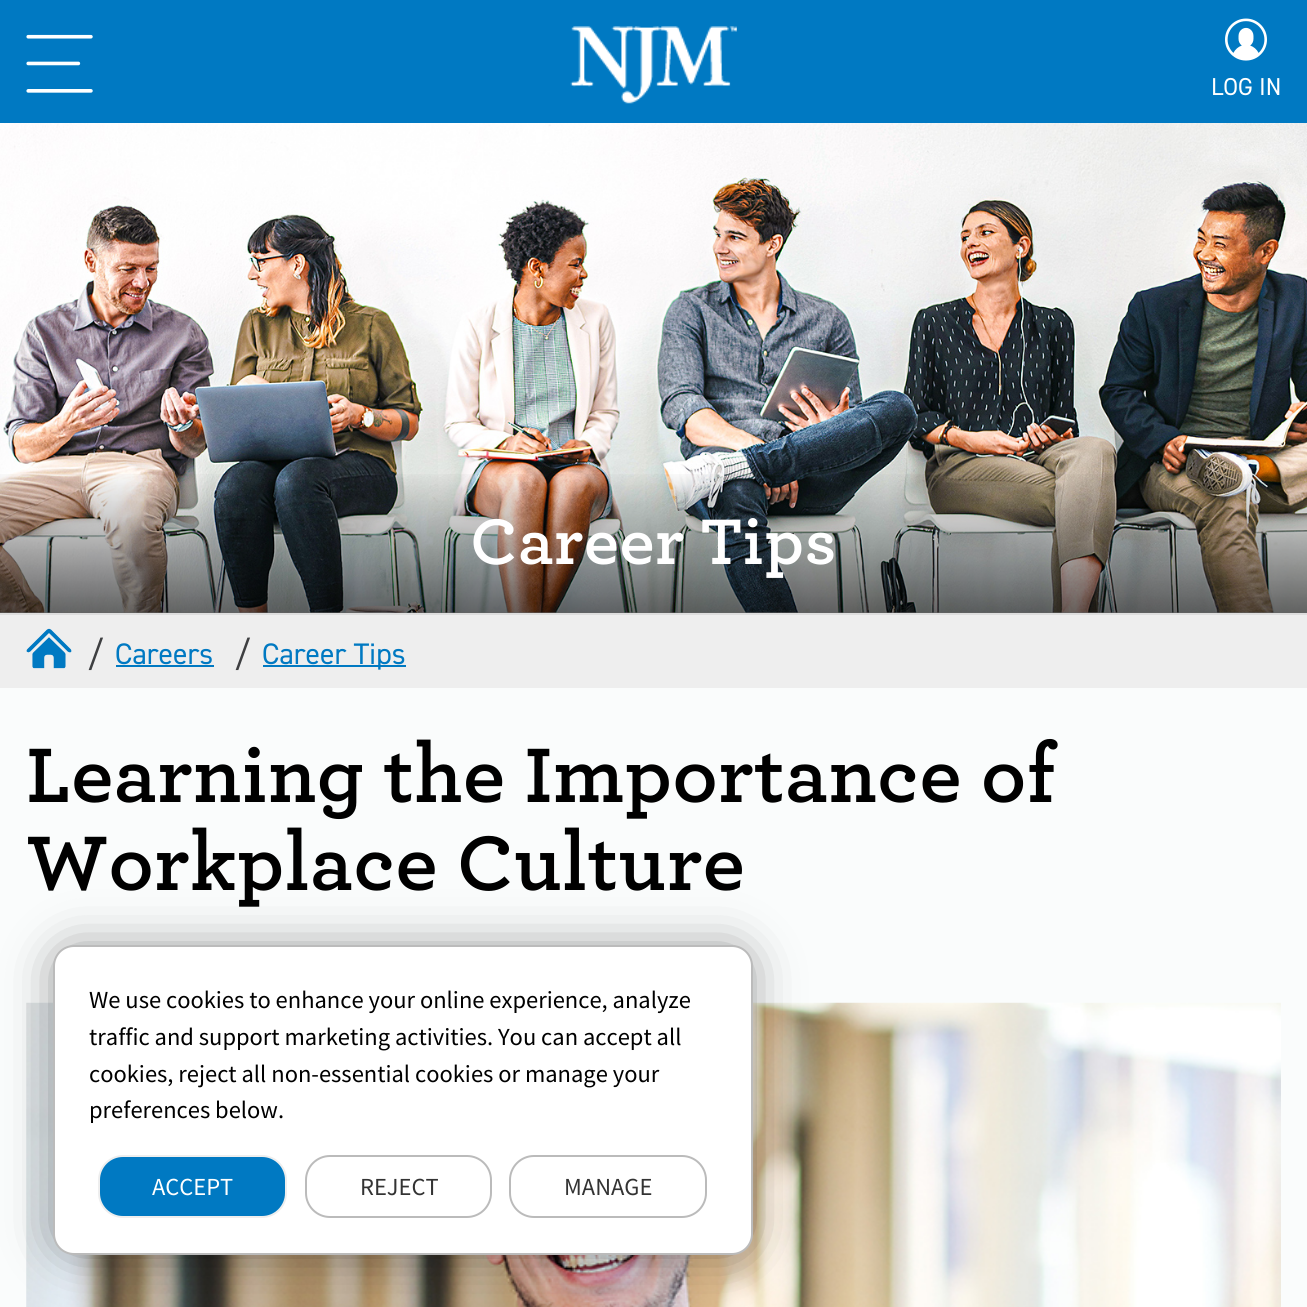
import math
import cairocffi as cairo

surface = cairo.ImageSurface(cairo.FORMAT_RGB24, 1307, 1307)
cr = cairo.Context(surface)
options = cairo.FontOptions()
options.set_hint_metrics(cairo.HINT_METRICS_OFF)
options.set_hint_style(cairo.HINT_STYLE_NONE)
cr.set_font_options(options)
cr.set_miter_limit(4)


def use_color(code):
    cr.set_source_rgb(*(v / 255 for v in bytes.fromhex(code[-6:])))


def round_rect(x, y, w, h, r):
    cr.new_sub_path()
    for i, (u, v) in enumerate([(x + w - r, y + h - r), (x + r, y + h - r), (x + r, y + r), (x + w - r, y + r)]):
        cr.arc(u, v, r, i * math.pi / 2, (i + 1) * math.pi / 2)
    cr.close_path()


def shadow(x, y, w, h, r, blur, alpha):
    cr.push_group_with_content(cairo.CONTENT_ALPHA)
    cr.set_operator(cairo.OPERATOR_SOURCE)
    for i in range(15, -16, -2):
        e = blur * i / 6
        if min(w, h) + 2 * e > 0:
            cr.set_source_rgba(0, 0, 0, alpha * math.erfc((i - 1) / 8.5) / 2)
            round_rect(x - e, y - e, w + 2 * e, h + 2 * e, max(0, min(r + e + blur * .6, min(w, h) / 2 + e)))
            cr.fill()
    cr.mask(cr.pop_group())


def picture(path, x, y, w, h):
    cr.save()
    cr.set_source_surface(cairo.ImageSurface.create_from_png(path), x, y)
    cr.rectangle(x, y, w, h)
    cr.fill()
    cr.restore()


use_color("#fafcfc")
cr.paint()
use_color("#0079c2")
cr.rectangle(0, 0, 1307, 123)
cr.fill()
picture("img1.png", 26, 34, 67, 59)
picture("img2.png", 570, 26, 167, 78)
picture("img3.png", 1225, 18, 42, 43)
cr.select_font_face("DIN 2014")
cr.set_font_size(24.5)
use_color("#ffffff")
cr.move_to(1211, 95)
cr.show_text("LOG IN")
picture("img4.png", 0, 123, 1307, 490)
gradient = cairo.LinearGradient(654, 469, 654, 613)
gradient.add_color_stop_rgba(0, 0, 0, 0, 0)
gradient.add_color_stop_rgba(1, 0, 0, 0, 0.6)
cr.set_source(gradient)
cr.rectangle(0, 474, 1307, 139)
cr.fill()
cr.select_font_face("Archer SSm", cairo.FONT_SLANT_NORMAL, cairo.FONT_WEIGHT_BOLD)
cr.set_font_size(61.25)
use_color("#ffffff")
cr.move_to(470, 564)
cr.show_text("Career Tips")
use_color("#eeeeee")
cr.rectangle(0, 615, 1307, 73)
cr.fill()
use_color("#dddddd")
cr.rectangle(0, 613, 1307, 2)
cr.fill()
picture("img5.png", 26, 628, 46, 41)
cr.select_font_face("DIN 2014")
cr.set_font_size(35)
use_color("#3e3f41")
cr.move_to(87, 666)
cr.show_text("/")
cr.set_font_size(29.75)
use_color("#0079c2")
cr.move_to(115, 664)
cr.show_text("Careers")
cr.rectangle(116, 665, 98, 2)
cr.fill()
cr.set_font_size(35)
use_color("#3e3f41")
cr.move_to(234, 666)
cr.show_text("/")
use_color("#0079c2")
cr.rectangle(263, 665, 143, 2)
cr.fill()
cr.set_font_size(29.75)
cr.move_to(262, 664)
cr.show_text("Career Tips")
cr.select_font_face("Archer SSm", cairo.FONT_SLANT_NORMAL, cairo.FONT_WEIGHT_BOLD)
cr.set_font_size(73.5)
use_color("#000000")
cr.move_to(26, 802)
cr.show_text("Learning the Importance of")
cr.move_to(26, 890)
cr.show_text("Workplace Culture")
picture("img6.png", 26, 1002, 1255, 305)
use_color("#000000")
shadow(61, 954, 683, 292, 12, 26, 0.5)
use_color("#ffffff")
round_rect(54, 946, 698, 308, 20)
cr.fill_preserve()
use_color("#bbbbbb")
cr.stroke()
cr.select_font_face("Source Sans Pro")
cr.set_font_size(24.5)
use_color("#000000")
cr.move_to(89, 1008)
cr.show_text("We use cookies to enhance your online experience, analyze")
cr.move_to(89, 1045)
cr.show_text("traffic and support marketing activities. You can accept all")
cr.move_to(89, 1082)
cr.show_text("cookies, reject all non-essential cookies or manage your")
cr.move_to(89, 1118)
cr.show_text("preferences below.")
use_color("#0079c2")
round_rect(99, 1156, 187, 61, 24)
cr.fill_preserve()
use_color("#eeeeee")
cr.stroke()
use_color("#ffffff")
cr.move_to(152, 1195)
cr.show_text("ACCEPT")
round_rect(306, 1156, 185, 61, 24)
use_color("#bbbbbb")
cr.stroke()
use_color("#333333")
cr.move_to(360, 1195)
cr.show_text("REJECT")
round_rect(510, 1156, 196, 61, 24)
use_color("#bbbbbb")
cr.stroke()
use_color("#333333")
cr.move_to(564, 1195)
cr.show_text("MANAGE")
surface.write_to_png("result.png")
